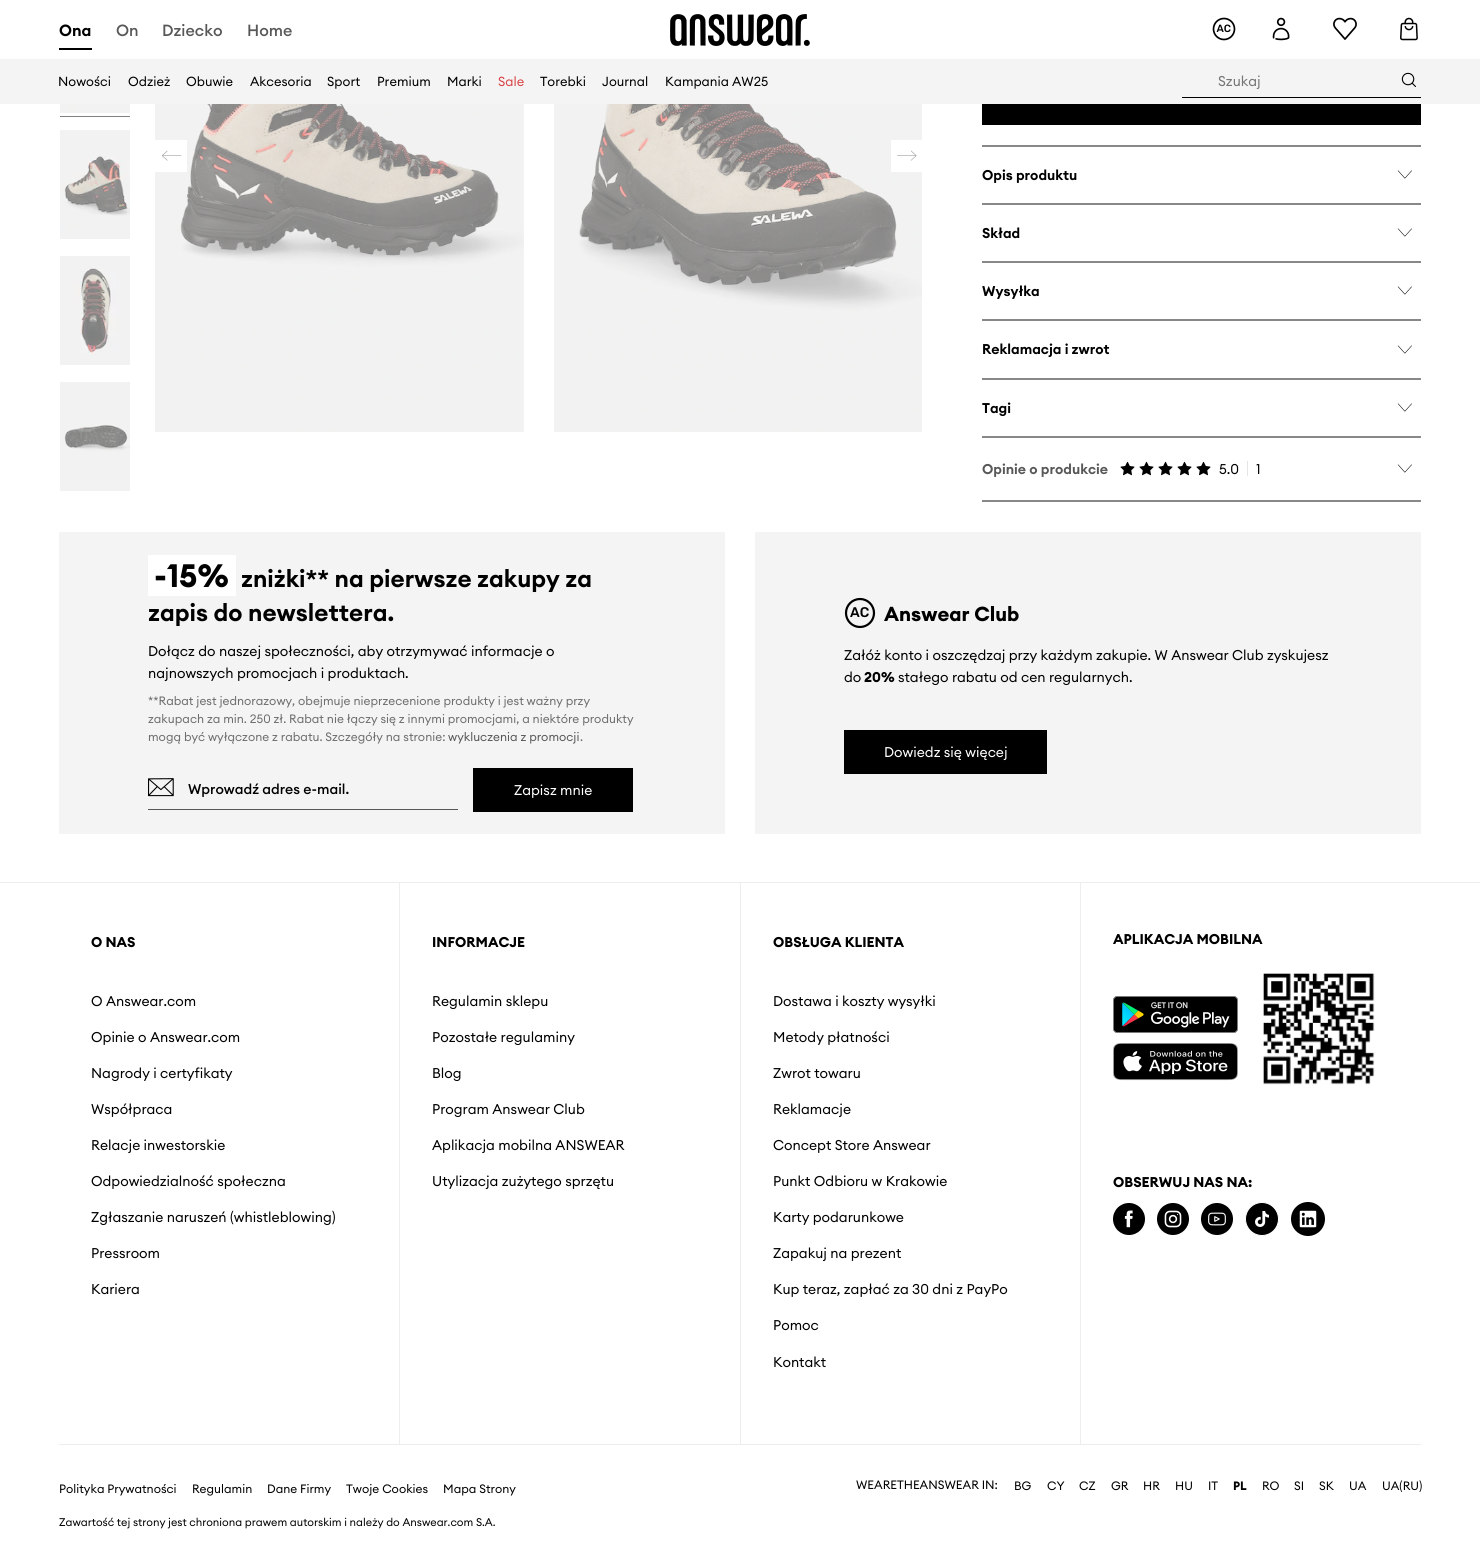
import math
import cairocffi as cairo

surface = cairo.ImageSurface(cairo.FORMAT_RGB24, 1480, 1553)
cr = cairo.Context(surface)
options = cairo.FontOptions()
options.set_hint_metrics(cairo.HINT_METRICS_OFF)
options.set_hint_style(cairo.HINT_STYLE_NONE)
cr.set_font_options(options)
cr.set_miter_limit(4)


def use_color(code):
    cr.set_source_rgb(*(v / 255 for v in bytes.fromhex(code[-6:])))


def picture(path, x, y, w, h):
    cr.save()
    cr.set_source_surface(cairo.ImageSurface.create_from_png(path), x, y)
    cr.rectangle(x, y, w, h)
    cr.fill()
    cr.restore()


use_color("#ffffff")
cr.paint()
cr.select_font_face("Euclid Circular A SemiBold")
cr.set_font_size(16)
use_color("#000000")
cr.move_to(59, 36)
cr.show_text("Ona")
cr.rectangle(59, 48, 33, 2)
cr.fill()
cr.select_font_face("Euclid Circular A Medium")
use_color("#585858")
cr.move_to(116, 36)
cr.show_text("On")
cr.move_to(162, 36)
cr.show_text("Dziecko")
cr.move_to(247, 36)
cr.show_text("Home")
picture("img1.png", 670, 14, 140, 32)
picture("img2.png", 1212, 17, 24, 24)
picture("img3.png", 1272, 17, 18, 24)
picture("img4.png", 1333, 17, 24, 23)
picture("img5.png", 1400, 17, 18, 24)
use_color("#f4f4f4")
cr.rectangle(0, 59, 1480, 45)
cr.fill()
cr.select_font_face("Euclid Circular A")
cr.set_font_size(13)
use_color("#000000")
cr.move_to(58, 86)
cr.show_text("Nowości")
cr.move_to(128, 86)
cr.show_text("Odzież")
cr.move_to(186, 86)
cr.show_text("Obuwie")
cr.move_to(250, 86)
cr.show_text("Akcesoria")
cr.move_to(327, 86)
cr.show_text("Sport")
cr.move_to(377, 86)
cr.show_text("Premium")
cr.move_to(447, 86)
cr.show_text("Marki")
use_color("#da4448")
cr.move_to(498, 86)
cr.show_text("Sale")
use_color("#000000")
cr.move_to(540, 86)
cr.show_text("Torebki")
cr.move_to(602, 86)
cr.show_text("Journal")
cr.move_to(665, 86)
cr.show_text("Kampania AW25")
cr.rectangle(1182, 97, 239, 1)
cr.fill()
cr.set_font_size(14)
use_color("#757575")
cr.move_to(1218, 86)
cr.show_text("Szukaj")
picture("img6.png", 1401, 72, 15, 15)
use_color("#808080")
cr.rectangle(60, 116, 70, 1)
cr.fill()
use_color("#fbfbfb")
cr.rectangle(60, 104, 70, 9)
cr.fill()
picture("img7.png", 60, 104, 70, 9)
cr.rectangle(60, 130, 70, 109)
cr.fill()
picture("img8.png", 60, 130, 70, 109)
cr.rectangle(60, 256, 70, 109)
cr.fill()
picture("img9.png", 60, 256, 70, 109)
cr.rectangle(60, 382, 70, 109)
cr.fill()
picture("img10.png", 60, 382, 70, 109)
cr.rectangle(155, 104, 369, 328)
cr.fill()
picture("img11.png", 155, 104, 369, 328)
cr.rectangle(554, 104, 368, 328)
cr.fill()
picture("img12.png", 554, 104, 368, 328)
use_color("#ffffff")
cr.rectangle(155, 140, 32, 32)
cr.fill()
picture("img13.png", 162, 150, 20, 11)
cr.rectangle(891, 140, 31, 32)
cr.fill()
picture("img14.png", 897, 150, 20, 11)
use_color("#000000")
cr.rectangle(982, 104, 439, 21)
cr.fill()
use_color("#888888")
cr.rectangle(982, 500, 439, 2)
cr.fill()
cr.rectangle(982, 145, 439, 2)
cr.fill()
cr.select_font_face("Euclid Circular A SemiBold")
use_color("#000000")
cr.move_to(982, 180)
cr.show_text("Opis produktu")
picture("img15.png", 1397, 170, 15, 9)
use_color("#888888")
cr.rectangle(982, 203, 439, 2)
cr.fill()
use_color("#000000")
cr.move_to(982, 238)
cr.show_text("Skład")
picture("img15.png", 1397, 228, 15, 9)
use_color("#888888")
cr.rectangle(982, 261, 439, 2)
cr.fill()
use_color("#000000")
cr.move_to(982, 296)
cr.show_text("Wysyłka")
picture("img15.png", 1397, 286, 15, 9)
use_color("#888888")
cr.rectangle(982, 319, 439, 2)
cr.fill()
use_color("#000000")
cr.move_to(982, 354)
cr.show_text("Reklamacja i zwrot")
picture("img15.png", 1397, 345, 15, 9)
use_color("#888888")
cr.rectangle(982, 378, 439, 2)
cr.fill()
use_color("#000000")
cr.move_to(982, 413)
cr.show_text("Tagi")
picture("img15.png", 1397, 403, 15, 9)
use_color("#888888")
cr.rectangle(982, 436, 439, 2)
cr.fill()
use_color("#585858")
cr.move_to(982, 474)
cr.show_text("Opinie o produkcie")
picture("img16.png", 1120, 461, 15, 15)
picture("img16.png", 1139, 461, 15, 15)
picture("img16.png", 1158, 461, 15, 15)
picture("img16.png", 1177, 461, 15, 15)
picture("img16.png", 1196, 461, 15, 15)
cr.select_font_face("Euclid Circular A")
use_color("#000000")
cr.move_to(1219, 474)
cr.show_text("5.0")
use_color("#e5e5e5")
cr.rectangle(1247, 461, 1, 15)
cr.fill()
use_color("#000000")
cr.move_to(1256, 474)
cr.show_text("1")
picture("img15.png", 1397, 464, 15, 9)
use_color("#f4f4f4")
cr.rectangle(59, 532, 666, 302)
cr.fill()
use_color("#ffffff")
cr.rectangle(148, 555, 88, 41)
cr.fill()
cr.select_font_face("Euclid Circular A", cairo.FONT_SLANT_NORMAL, cairo.FONT_WEIGHT_BOLD)
cr.set_font_size(32)
use_color("#000000")
cr.move_to(154, 587)
cr.show_text("-15%")
cr.select_font_face("Euclid Circular A SemiBold")
cr.set_font_size(24)
cr.move_to(241, 587)
cr.show_text("zniżki** na pierwsze zakupy za")
cr.move_to(148, 621)
cr.show_text("zapis do newslettera.")
cr.select_font_face("Euclid Circular A")
cr.set_font_size(14)
cr.move_to(148, 656)
cr.show_text("Dołącz do naszej społeczności, aby otrzymywać informacje o")
cr.move_to(148, 678)
cr.show_text("najnowszych promocjach i produktach.")
cr.set_font_size(12)
use_color("#6e6e6e")
cr.move_to(148, 705)
cr.show_text("**Rabat jest jednorazowy, obejmuje nieprzecenione produkty i jest ważny przy")
cr.move_to(148, 723)
cr.show_text("zakupach za min. 250 zł. Rabat nie łączy się z innymi promocjami, a niektóre produkty")
cr.move_to(148, 741)
cr.show_text("mogą być wyłączone z rabatu. Szczegóły na stronie:")
use_color("#585858")
cr.move_to(448, 741)
cr.show_text("wykluczenia z promocji")
use_color("#6e6e6e")
cr.move_to(580, 741)
cr.show_text(".")
picture("img17.png", 148, 778, 26, 19)
use_color("#585858")
cr.rectangle(148, 809, 310, 1)
cr.fill()
cr.select_font_face("Euclid Circular A Medium")
cr.set_font_size(14)
use_color("#000000")
cr.move_to(188, 794)
cr.show_text("Wprowadź adres e-mail.")
cr.rectangle(473, 768, 160, 44)
cr.fill()
cr.select_font_face("Euclid Circular A")
use_color("#ffffff")
cr.move_to(514, 795)
cr.show_text("Zapisz mnie")
use_color("#f4f4f4")
cr.rectangle(755, 532, 666, 302)
cr.fill()
picture("img18.png", 844, 597, 32, 32)
cr.select_font_face("Euclid Circular A", cairo.FONT_SLANT_NORMAL, cairo.FONT_WEIGHT_BOLD)
cr.set_font_size(20)
use_color("#000000")
cr.move_to(884, 621)
cr.show_text("Answear Club")
cr.select_font_face("Euclid Circular A")
cr.set_font_size(14)
cr.move_to(844, 660)
cr.show_text("Załóż konto i oszczędzaj przy każdym zakupie. W Answear Club zyskujesz")
cr.move_to(844, 682)
cr.show_text("do")
cr.select_font_face("Euclid Circular A", cairo.FONT_SLANT_NORMAL, cairo.FONT_WEIGHT_BOLD)
cr.move_to(864, 682)
cr.show_text("20%")
cr.select_font_face("Euclid Circular A")
cr.move_to(898, 682)
cr.show_text("stałego rabatu od cen regularnych.")
cr.rectangle(844, 730, 203, 44)
cr.fill()
use_color("#ffffff")
cr.move_to(884, 757)
cr.show_text("Dowiedz się więcej")
use_color("#ededed")
cr.rectangle(0, 882, 1480, 1)
cr.fill()
cr.rectangle(399, 883, 1, 562)
cr.fill()
cr.rectangle(59, 1444, 341, 1)
cr.fill()
cr.select_font_face("Euclid Circular A", cairo.FONT_SLANT_NORMAL, cairo.FONT_WEIGHT_BOLD)
use_color("#000000")
cr.move_to(91, 947)
cr.show_text("O NAS")
cr.select_font_face("Euclid Circular A")
cr.move_to(91, 1006)
cr.show_text("O Answear.com")
cr.move_to(91, 1042)
cr.show_text("Opinie o Answear.com")
cr.move_to(91, 1078)
cr.show_text("Nagrody i certyfikaty")
cr.move_to(91, 1114)
cr.show_text("Współpraca")
cr.move_to(91, 1150)
cr.show_text("Relacje inwestorskie")
cr.move_to(91, 1186)
cr.show_text("Odpowiedzialność społeczna")
cr.move_to(91, 1222)
cr.show_text("Zgłaszanie naruszeń (whistleblowing)")
cr.move_to(91, 1258)
cr.show_text("Pressroom")
cr.move_to(91, 1294)
cr.show_text("Kariera")
use_color("#ededed")
cr.rectangle(740, 883, 1, 562)
cr.fill()
cr.rectangle(400, 1444, 341, 1)
cr.fill()
cr.select_font_face("Euclid Circular A", cairo.FONT_SLANT_NORMAL, cairo.FONT_WEIGHT_BOLD)
use_color("#000000")
cr.move_to(432, 947)
cr.show_text("INFORMACJE")
cr.select_font_face("Euclid Circular A")
cr.move_to(432, 1006)
cr.show_text("Regulamin sklepu")
cr.move_to(432, 1042)
cr.show_text("Pozostałe regulaminy")
cr.move_to(432, 1078)
cr.show_text("Blog")
cr.move_to(432, 1114)
cr.show_text("Program Answear Club")
cr.move_to(432, 1150)
cr.show_text("Aplikacja mobilna ANSWEAR")
cr.move_to(432, 1186)
cr.show_text("Utylizacja zużytego sprzętu")
use_color("#ededed")
cr.rectangle(1080, 883, 1, 562)
cr.fill()
cr.rectangle(741, 1444, 680, 1)
cr.fill()
cr.select_font_face("Euclid Circular A", cairo.FONT_SLANT_NORMAL, cairo.FONT_WEIGHT_BOLD)
use_color("#000000")
cr.move_to(773, 947)
cr.show_text("OBSŁUGA KLIENTA")
cr.select_font_face("Euclid Circular A")
cr.move_to(773, 1006)
cr.show_text("Dostawa i koszty wysyłki")
cr.move_to(773, 1042)
cr.show_text("Metody płatności")
cr.move_to(773, 1078)
cr.show_text("Zwrot towaru")
cr.move_to(773, 1114)
cr.show_text("Reklamacje")
cr.move_to(773, 1150)
cr.show_text("Concept Store Answear")
cr.move_to(773, 1186)
cr.show_text("Punkt Odbioru w Krakowie")
cr.move_to(773, 1222)
cr.show_text("Karty podarunkowe")
cr.move_to(773, 1258)
cr.show_text("Zapakuj na prezent")
cr.move_to(773, 1294)
cr.show_text("Kup teraz, zapłać za 30 dni z PayPo")
cr.move_to(773, 1330)
cr.show_text("Pomoc")
cr.move_to(773, 1367)
cr.show_text("Kontakt")
cr.select_font_face("Euclid Circular A", cairo.FONT_SLANT_NORMAL, cairo.FONT_WEIGHT_BOLD)
cr.move_to(1113, 944)
cr.show_text("APLIKACJA MOBILNA")
picture("img19.png", 1113, 996, 125, 37)
picture("img20.png", 1113, 1043, 125, 38)
picture("img21.png", 1256, 966, 125, 125)
cr.move_to(1113, 1187)
cr.show_text("OBSERWUJ NAS NA:")
picture("img22.png", 1113, 1203, 32, 32)
picture("img23.png", 1157, 1203, 32, 32)
picture("img24.png", 1201, 1203, 32, 32)
picture("img25.png", 1245, 1202, 34, 34)
picture("img26.png", 1291, 1202, 34, 34)
cr.select_font_face("Euclid Circular A")
cr.set_font_size(12)
cr.move_to(59, 1493)
cr.show_text("Polityka Prywatności")
cr.move_to(192, 1493)
cr.show_text("Regulamin")
cr.move_to(267, 1493)
cr.show_text("Dane Firmy")
cr.move_to(346, 1493)
cr.show_text("Twoje Cookies")
cr.move_to(443, 1493)
cr.show_text("Mapa Strony")
cr.move_to(856, 1489)
cr.show_text("WEARETHEANSWEAR IN:")
cr.move_to(1014, 1490)
cr.show_text("BG")
cr.move_to(1047, 1490)
cr.show_text("CY")
cr.move_to(1079, 1490)
cr.show_text("CZ")
cr.move_to(1111, 1490)
cr.show_text("GR")
cr.move_to(1143, 1490)
cr.show_text("HR")
cr.move_to(1175, 1490)
cr.show_text("HU")
cr.move_to(1208, 1490)
cr.show_text("IT")
cr.select_font_face("Euclid Circular A", cairo.FONT_SLANT_NORMAL, cairo.FONT_WEIGHT_BOLD)
cr.move_to(1233, 1490)
cr.show_text("PL")
cr.select_font_face("Euclid Circular A")
cr.move_to(1262, 1490)
cr.show_text("RO")
cr.move_to(1294, 1490)
cr.show_text("SI")
cr.move_to(1319, 1490)
cr.show_text("SK")
cr.move_to(1349, 1490)
cr.show_text("UA")
cr.move_to(1382, 1490)
cr.show_text("UA(RU)")
cr.set_font_size(11)
cr.move_to(59, 1526)
cr.show_text("Zawartość tej strony jest chroniona prawem autorskim i należy do Answear.com S.A.")
surface.write_to_png("result.png")
